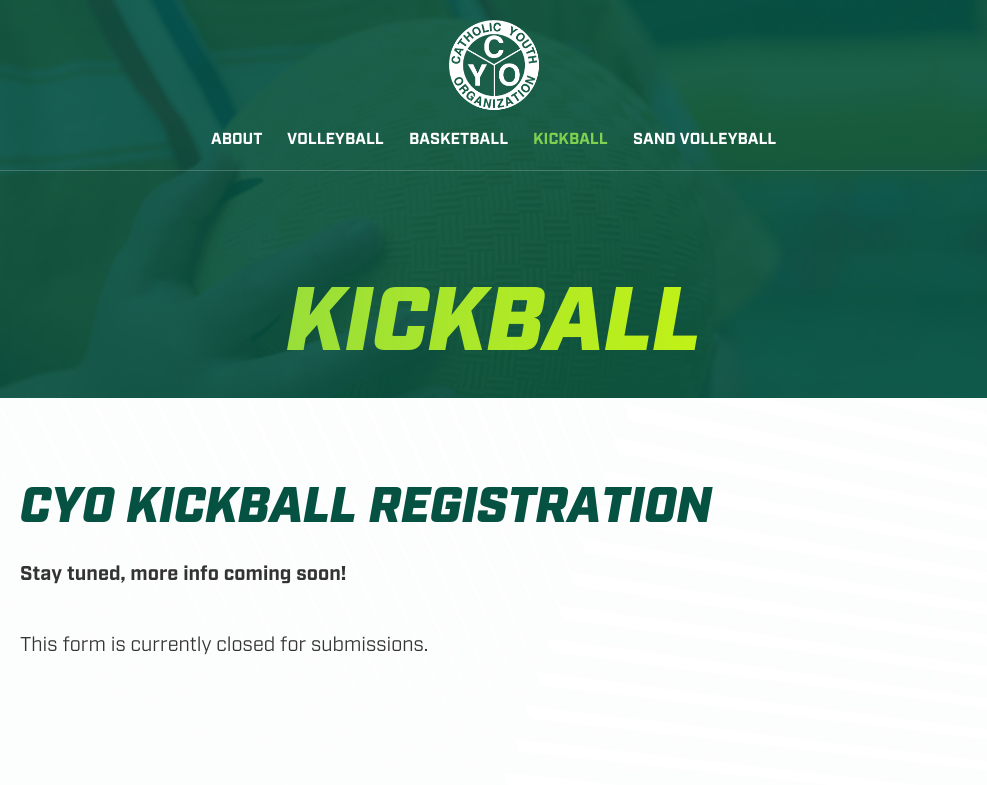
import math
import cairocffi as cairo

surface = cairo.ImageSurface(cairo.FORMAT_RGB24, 987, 785)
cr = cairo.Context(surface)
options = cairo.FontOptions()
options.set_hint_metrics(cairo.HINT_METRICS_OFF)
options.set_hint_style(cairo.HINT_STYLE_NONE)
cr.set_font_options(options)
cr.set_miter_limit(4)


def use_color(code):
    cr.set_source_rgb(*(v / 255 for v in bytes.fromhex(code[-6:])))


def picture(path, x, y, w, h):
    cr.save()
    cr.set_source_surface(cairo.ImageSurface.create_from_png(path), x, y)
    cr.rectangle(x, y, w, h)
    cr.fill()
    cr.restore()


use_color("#ffffff")
cr.paint()
picture("img2.png", 0, 0, 987, 398)
cr.set_source_rgba(1, 1, 1, 0.2)
cr.rectangle(0, 170, 987, 1)
cr.fill()
picture("img1.png", 449, 20, 90, 90)
cr.select_font_face("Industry", cairo.FONT_SLANT_NORMAL, cairo.FONT_WEIGHT_BOLD)
cr.set_font_size(16)
use_color("#ffffff")
cr.move_to(211, 144)
cr.show_text("ABOUT")
cr.move_to(287, 144)
cr.show_text("VOLLEYBALL")
cr.move_to(409, 144)
cr.show_text("BASKETBALL")
use_color("#7fd150")
cr.move_to(533, 144)
cr.show_text("KICKBALL")
use_color("#ffffff")
cr.move_to(633, 144)
cr.show_text("SAND VOLLEYBALL")
cr.select_font_face("Industry Black", cairo.FONT_SLANT_ITALIC)
cr.set_font_size(90)
gradient = cairo.LinearGradient(20, 324, 967, 324)
gradient.add_color_stop_rgba(0, 0.498, 0.82, 0.314, 1)
gradient.add_color_stop_rgba(1, 0.859, 1, 0, 1)
cr.set_source(gradient)
cr.move_to(286, 350)
cr.show_text("KICKBALL")
picture("img3.png", 0, 398, 987, 387)
cr.set_font_size(50)
use_color("#055242")
cr.move_to(20, 522)
cr.show_text("CYO KICKBALL REGISTRATION")
cr.select_font_face("Industry", cairo.FONT_SLANT_NORMAL, cairo.FONT_WEIGHT_BOLD)
cr.set_font_size(20)
use_color("#333333")
cr.move_to(20, 580)
cr.show_text("Stay tuned, more info coming soon!")
cr.select_font_face("Industry")
cr.move_to(20, 651)
cr.show_text("This form is currently closed for submissions.")
surface.write_to_png("result.png")
